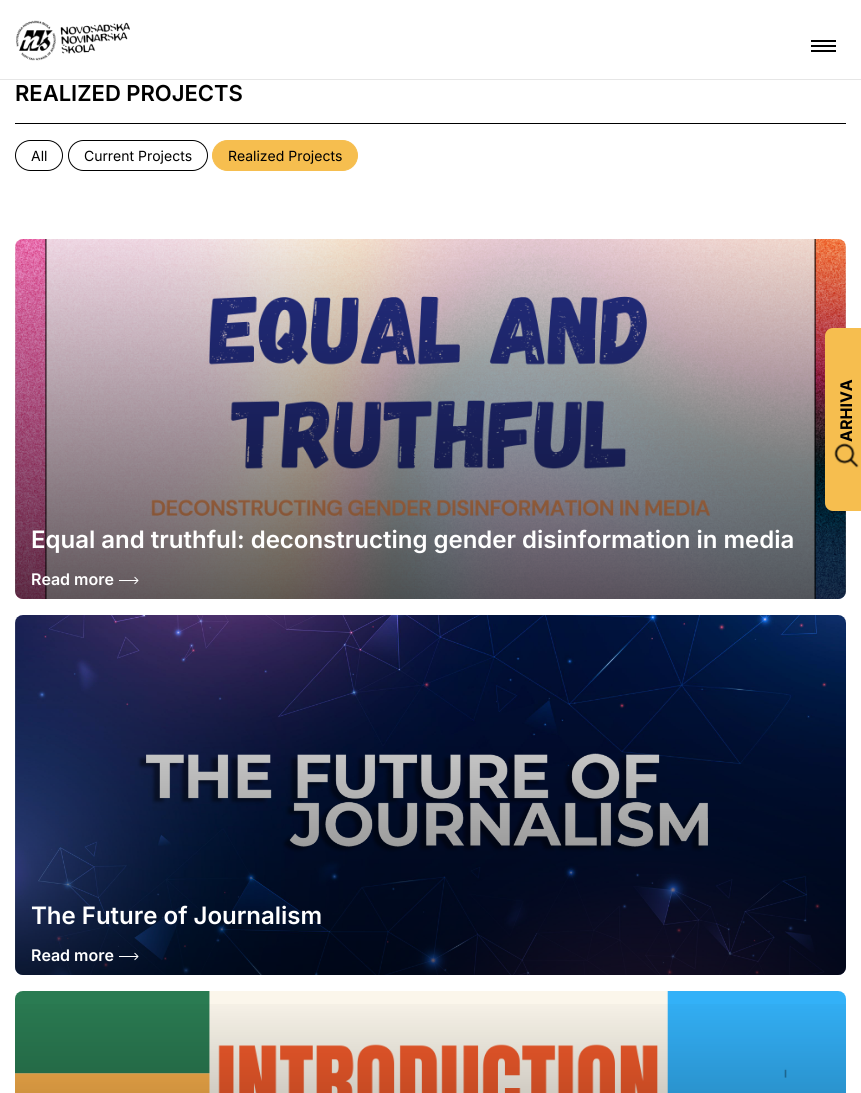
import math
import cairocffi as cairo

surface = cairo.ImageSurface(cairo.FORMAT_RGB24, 861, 1093)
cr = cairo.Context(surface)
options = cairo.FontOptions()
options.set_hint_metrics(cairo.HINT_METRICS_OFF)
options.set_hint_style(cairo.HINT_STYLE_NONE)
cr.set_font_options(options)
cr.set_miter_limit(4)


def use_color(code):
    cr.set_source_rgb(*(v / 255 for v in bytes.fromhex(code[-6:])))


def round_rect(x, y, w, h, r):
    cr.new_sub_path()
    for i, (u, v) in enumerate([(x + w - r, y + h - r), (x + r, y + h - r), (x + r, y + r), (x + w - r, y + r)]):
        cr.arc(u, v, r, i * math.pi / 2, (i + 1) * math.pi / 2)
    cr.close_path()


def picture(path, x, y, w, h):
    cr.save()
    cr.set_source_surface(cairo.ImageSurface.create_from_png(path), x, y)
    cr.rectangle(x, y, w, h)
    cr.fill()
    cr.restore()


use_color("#ffffff")
cr.paint()
picture("img1.png", 16, 20, 114, 41)
use_color("#000000")
cr.rectangle(811, 40, 25, 2)
cr.fill()
cr.rectangle(811, 45, 25, 2)
cr.fill()
cr.rectangle(811, 50, 25, 2)
cr.fill()
use_color("#e6e6e6")
cr.rectangle(0, 79, 861, 1)
cr.fill()
use_color("#000000")
cr.rectangle(15, 123, 831, 1)
cr.fill()
cr.select_font_face("Inter SemiBold")
cr.set_font_size(22)
cr.move_to(15, 101)
cr.show_text("REALIZED PROJECTS")
round_rect(15.5, 140.5, 47, 30, 15)
cr.set_line_width(1)
cr.stroke()
cr.select_font_face("Inter")
cr.set_font_size(14)
cr.move_to(31, 161)
cr.show_text("All")
round_rect(68.5, 140.5, 139, 30, 15)
cr.stroke()
cr.move_to(84, 161)
cr.show_text("Current Projects")
use_color("#f6be4f")
round_rect(212.5, 140.5, 145, 30, 15)
cr.fill_preserve()
cr.stroke()
use_color("#000000")
cr.move_to(228, 161)
cr.show_text("Realized Projects")
picture("img2.png", 15, 239, 831, 360)
gradient = cairo.LinearGradient(431, 599, 431, 239)
gradient.add_color_stop_rgba(0, 0, 0, 0, 0.6)
gradient.add_color_stop_rgba(1, 0, 0, 0, 0)
cr.set_source(gradient)
round_rect(15, 239, 831, 360, 8)
cr.fill()
cr.select_font_face("Inter SemiBold")
cr.set_font_size(24)
use_color("#ffffff")
cr.move_to(31, 548)
cr.show_text("Equal and truthful: deconstructing gender disinformation in media")
cr.set_font_size(16)
cr.move_to(31, 585)
cr.show_text("Read more")
picture("img3.png", 119, 576, 20, 9)
picture("img4.png", 15, 615, 831, 360)
gradient = cairo.LinearGradient(431, 975, 431, 615)
gradient.add_color_stop_rgba(0, 0, 0, 0, 0.6)
gradient.add_color_stop_rgba(1, 0, 0, 0, 0)
cr.set_source(gradient)
round_rect(15, 615, 831, 360, 8)
cr.fill()
cr.set_font_size(24)
use_color("#ffffff")
cr.move_to(31, 924)
cr.show_text("The Future of Journalism")
cr.set_font_size(16)
cr.move_to(31, 961)
cr.show_text("Read more")
picture("img5.png", 119, 952, 20, 9)
picture("img6.png", 15, 991, 831, 102)
gradient = cairo.LinearGradient(431, 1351, 431, 991)
gradient.add_color_stop_rgba(0, 0, 0, 0, 0.6)
gradient.add_color_stop_rgba(1, 0, 0, 0, 0)
cr.set_source(gradient)
cr.rectangle(15, 1004, 831, 89)
cr.fill()
use_color("#f6be4f")
round_rect(825, 328, 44, 183, 8)
cr.fill()
cr.select_font_face("Inter", cairo.FONT_SLANT_NORMAL, cairo.FONT_WEIGHT_BOLD)
use_color("#000000")
cr.save()
cr.translate(852, 442)
cr.rotate(-90 * math.pi / 180)
cr.move_to(0, 0)
cr.show_text("ARHIVA")
cr.restore()
picture("img7.png", 834, 443, 25, 25)
surface.write_to_png("result.png")
